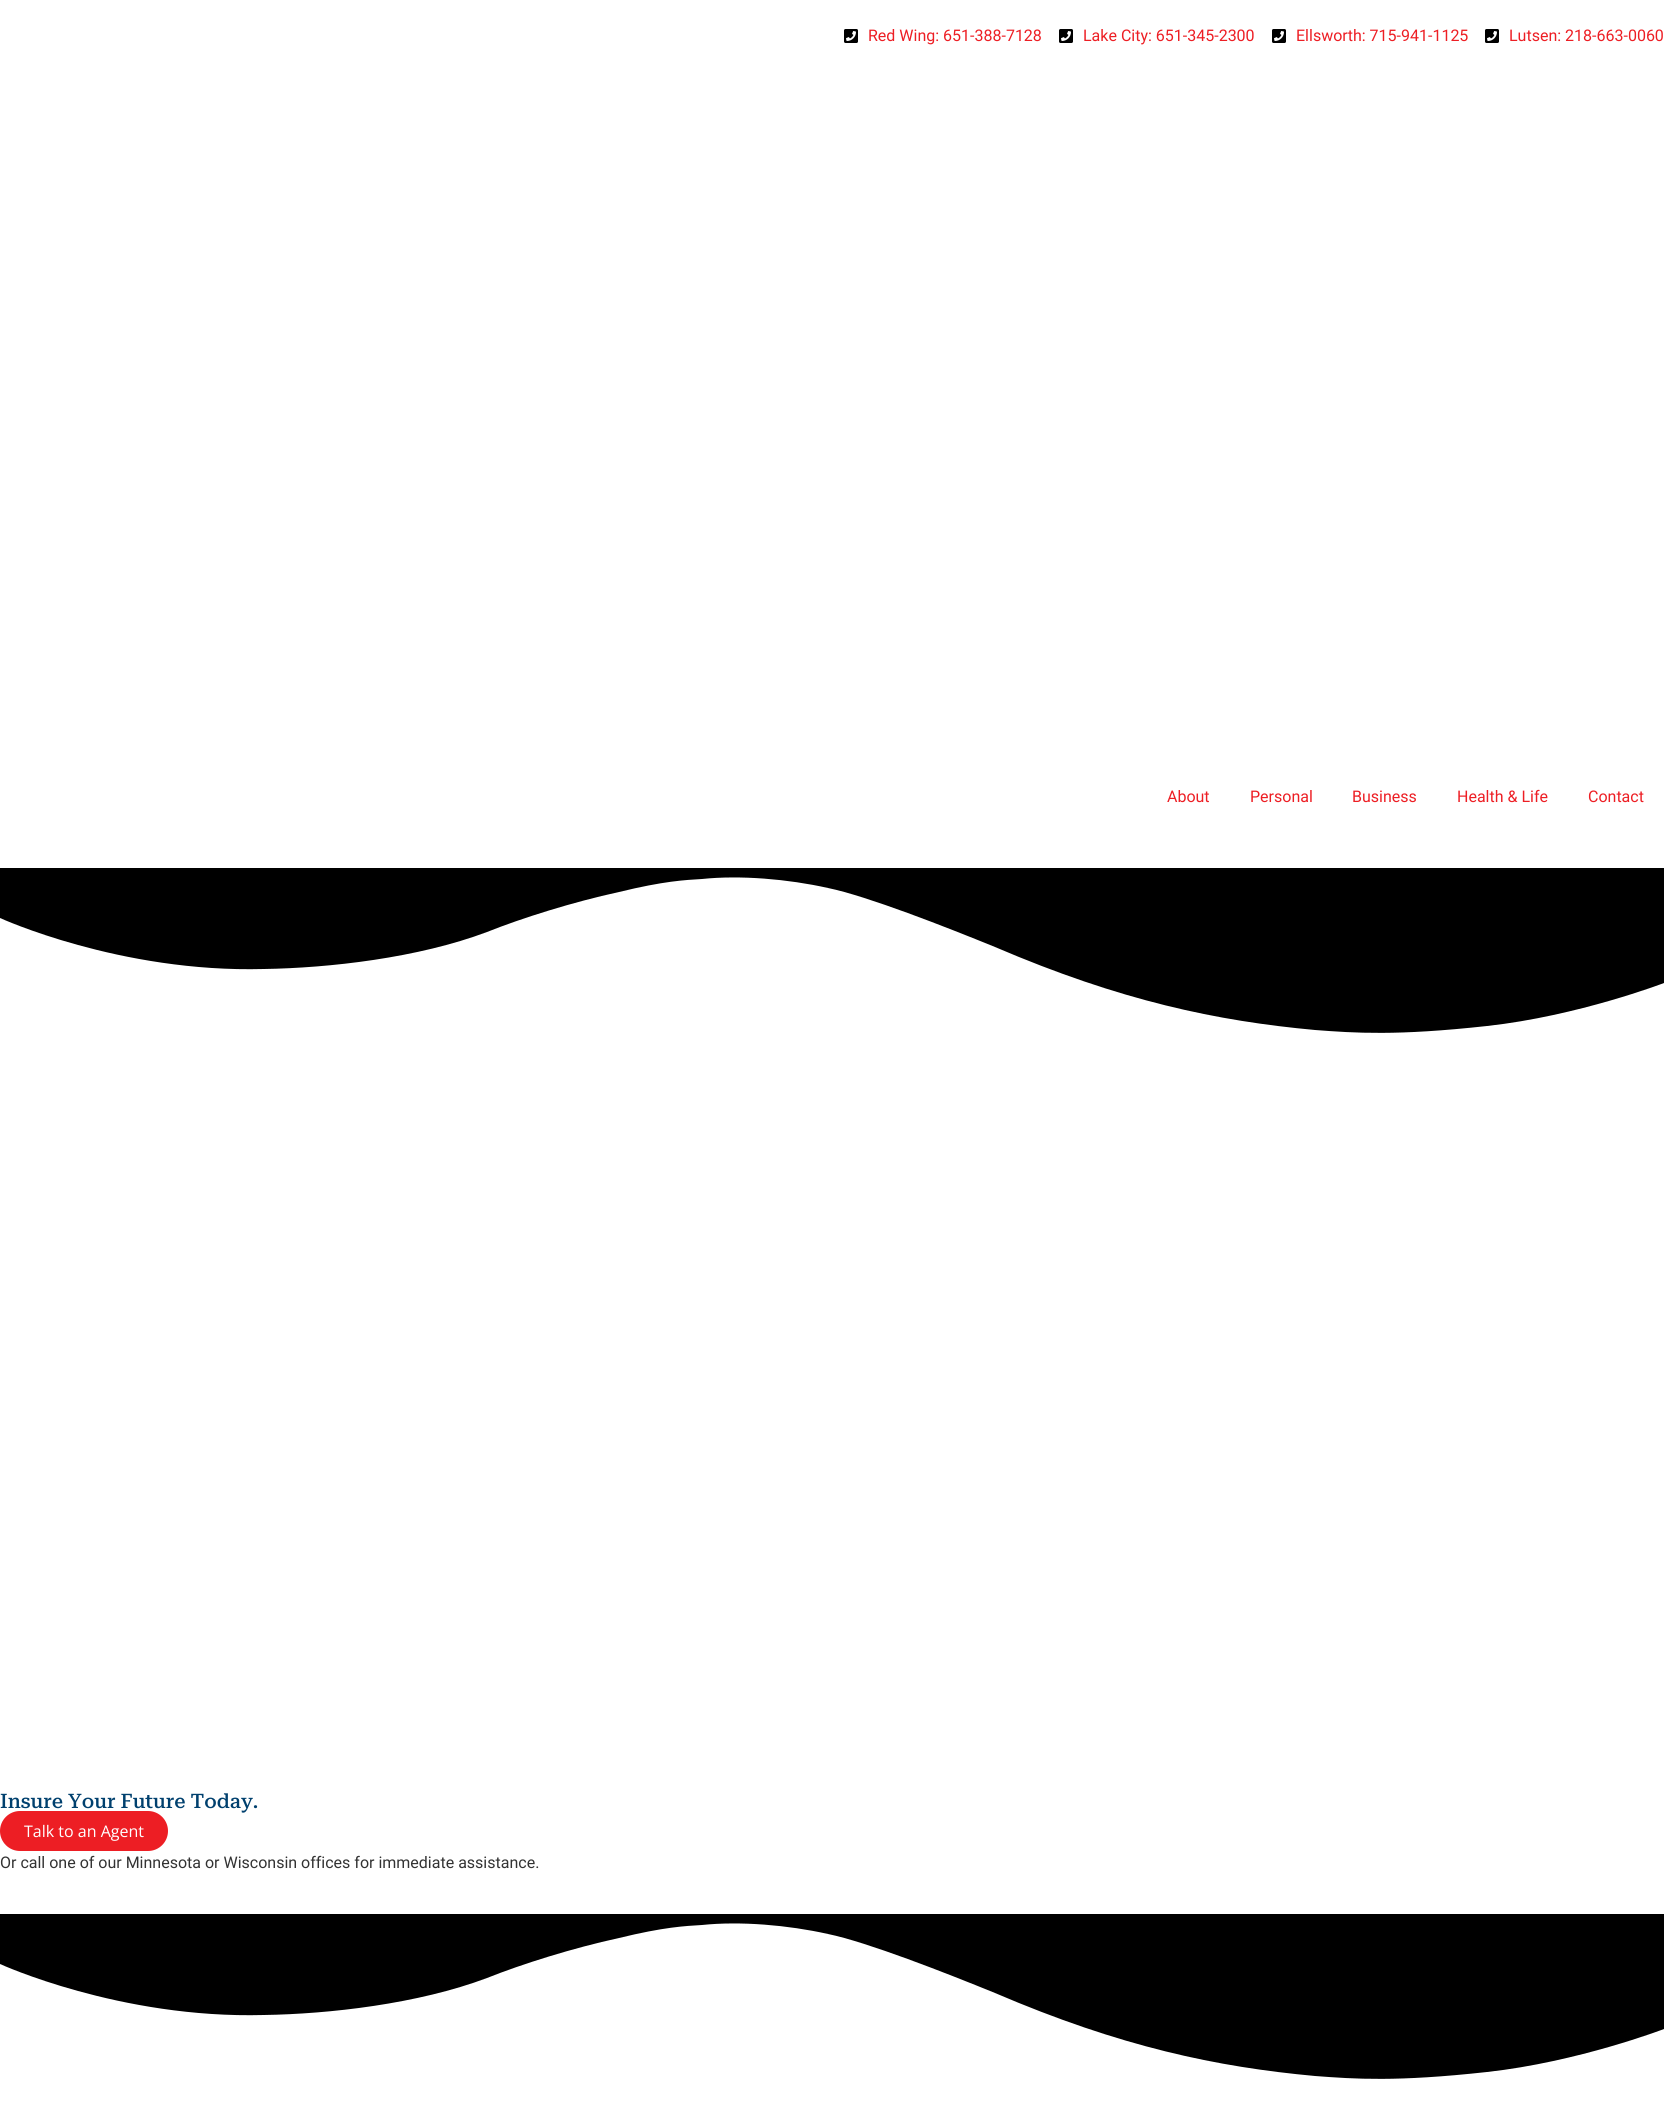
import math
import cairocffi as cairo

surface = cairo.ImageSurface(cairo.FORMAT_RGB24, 1664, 2107)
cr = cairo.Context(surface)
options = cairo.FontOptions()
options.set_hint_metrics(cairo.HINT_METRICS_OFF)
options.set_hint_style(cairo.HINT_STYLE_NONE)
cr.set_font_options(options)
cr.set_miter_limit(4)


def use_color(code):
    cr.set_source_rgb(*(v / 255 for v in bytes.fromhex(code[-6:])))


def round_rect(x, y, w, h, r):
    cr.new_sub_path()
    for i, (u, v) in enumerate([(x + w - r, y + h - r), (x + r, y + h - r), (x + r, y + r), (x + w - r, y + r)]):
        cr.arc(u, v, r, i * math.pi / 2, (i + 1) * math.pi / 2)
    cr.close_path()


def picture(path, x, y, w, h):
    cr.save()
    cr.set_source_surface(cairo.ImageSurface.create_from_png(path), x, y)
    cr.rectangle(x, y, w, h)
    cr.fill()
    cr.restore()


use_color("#ffffff")
cr.paint()
picture("img1.png", 844, 29, 14, 14)
cr.select_font_face("Roboto")
cr.set_font_size(16)
use_color("#ed1e24")
cr.move_to(868, 41)
cr.show_text("Red Wing: 651-388-7128")
picture("img1.png", 1059, 29, 14, 14)
cr.move_to(1083, 41)
cr.show_text("Lake City: 651-345-2300")
picture("img1.png", 1272, 29, 14, 14)
cr.move_to(1296, 41)
cr.show_text("Ellsworth: 715-941-1125")
picture("img1.png", 1485, 29, 14, 14)
cr.move_to(1509, 41)
cr.show_text("Lutsen: 218-663-0060")
cr.move_to(1167, 802)
cr.show_text("About")
cr.move_to(1250, 802)
cr.show_text("Personal")
cr.move_to(1352, 802)
cr.show_text("Business")
cr.move_to(1457, 802)
cr.show_text("Health & Life")
cr.move_to(1588, 802)
cr.show_text("Contact")
use_color("#000000")
cr.new_path()
cr.move_to(702, 879)
cr.curve_to(740, 875, 788, 879, 828, 888)
cr.curve_to(867, 896, 946, 927, 995, 947)
cr.curve_to(1121, 1001, 1217, 1021, 1315, 1030)
cr.curve_to(1355, 1033, 1396, 1036, 1487, 1026)
cr.curve_to(1578, 1016, 1664, 983, 1664, 983)
cr.line_to(1664, 868)
cr.line_to(0, 868)
cr.line_to(0, 918)
cr.curve_to(0, 918, 120, 973, 264, 969)
cr.curve_to(329, 968, 418, 958, 487, 932)
cr.curve_to(522, 918, 573, 902, 619, 892)
cr.curve_to(664, 881, 685, 880, 702, 879)
cr.close_path()
cr.fill()
cr.select_font_face("Roboto Serif Medium")
cr.set_font_size(20)
use_color("#00406e")
cr.move_to(0, 1808)
cr.show_text("Insure Your Future Today.")
use_color("#ed1e24")
round_rect(0, 1811, 168, 40, 20)
cr.fill()
cr.select_font_face("Open Sans")
cr.set_font_size(16)
use_color("#ffffff")
cr.move_to(24, 1837)
cr.show_text("Talk to an Agent")
cr.select_font_face("Roboto")
use_color("#333333")
cr.move_to(0, 1868)
cr.show_text("Or call one of our Minnesota or Wisconsin offices for immediate assistance.")
use_color("#000000")
cr.new_path()
cr.move_to(702, 1925)
cr.curve_to(740, 1921, 788, 1925, 828, 1934)
cr.curve_to(867, 1942, 946, 1973, 995, 1993)
cr.curve_to(1121, 2047, 1217, 2067, 1315, 2076)
cr.curve_to(1355, 2079, 1396, 2082, 1487, 2072)
cr.curve_to(1578, 2062, 1664, 2029, 1664, 2029)
cr.line_to(1664, 1914)
cr.line_to(0, 1914)
cr.line_to(0, 1964)
cr.curve_to(0, 1964, 120, 2019, 264, 2015)
cr.curve_to(329, 2014, 418, 2004, 487, 1978)
cr.curve_to(522, 1964, 573, 1948, 619, 1938)
cr.curve_to(664, 1927, 685, 1926, 702, 1925)
cr.close_path()
cr.fill()
surface.write_to_png("result.png")
